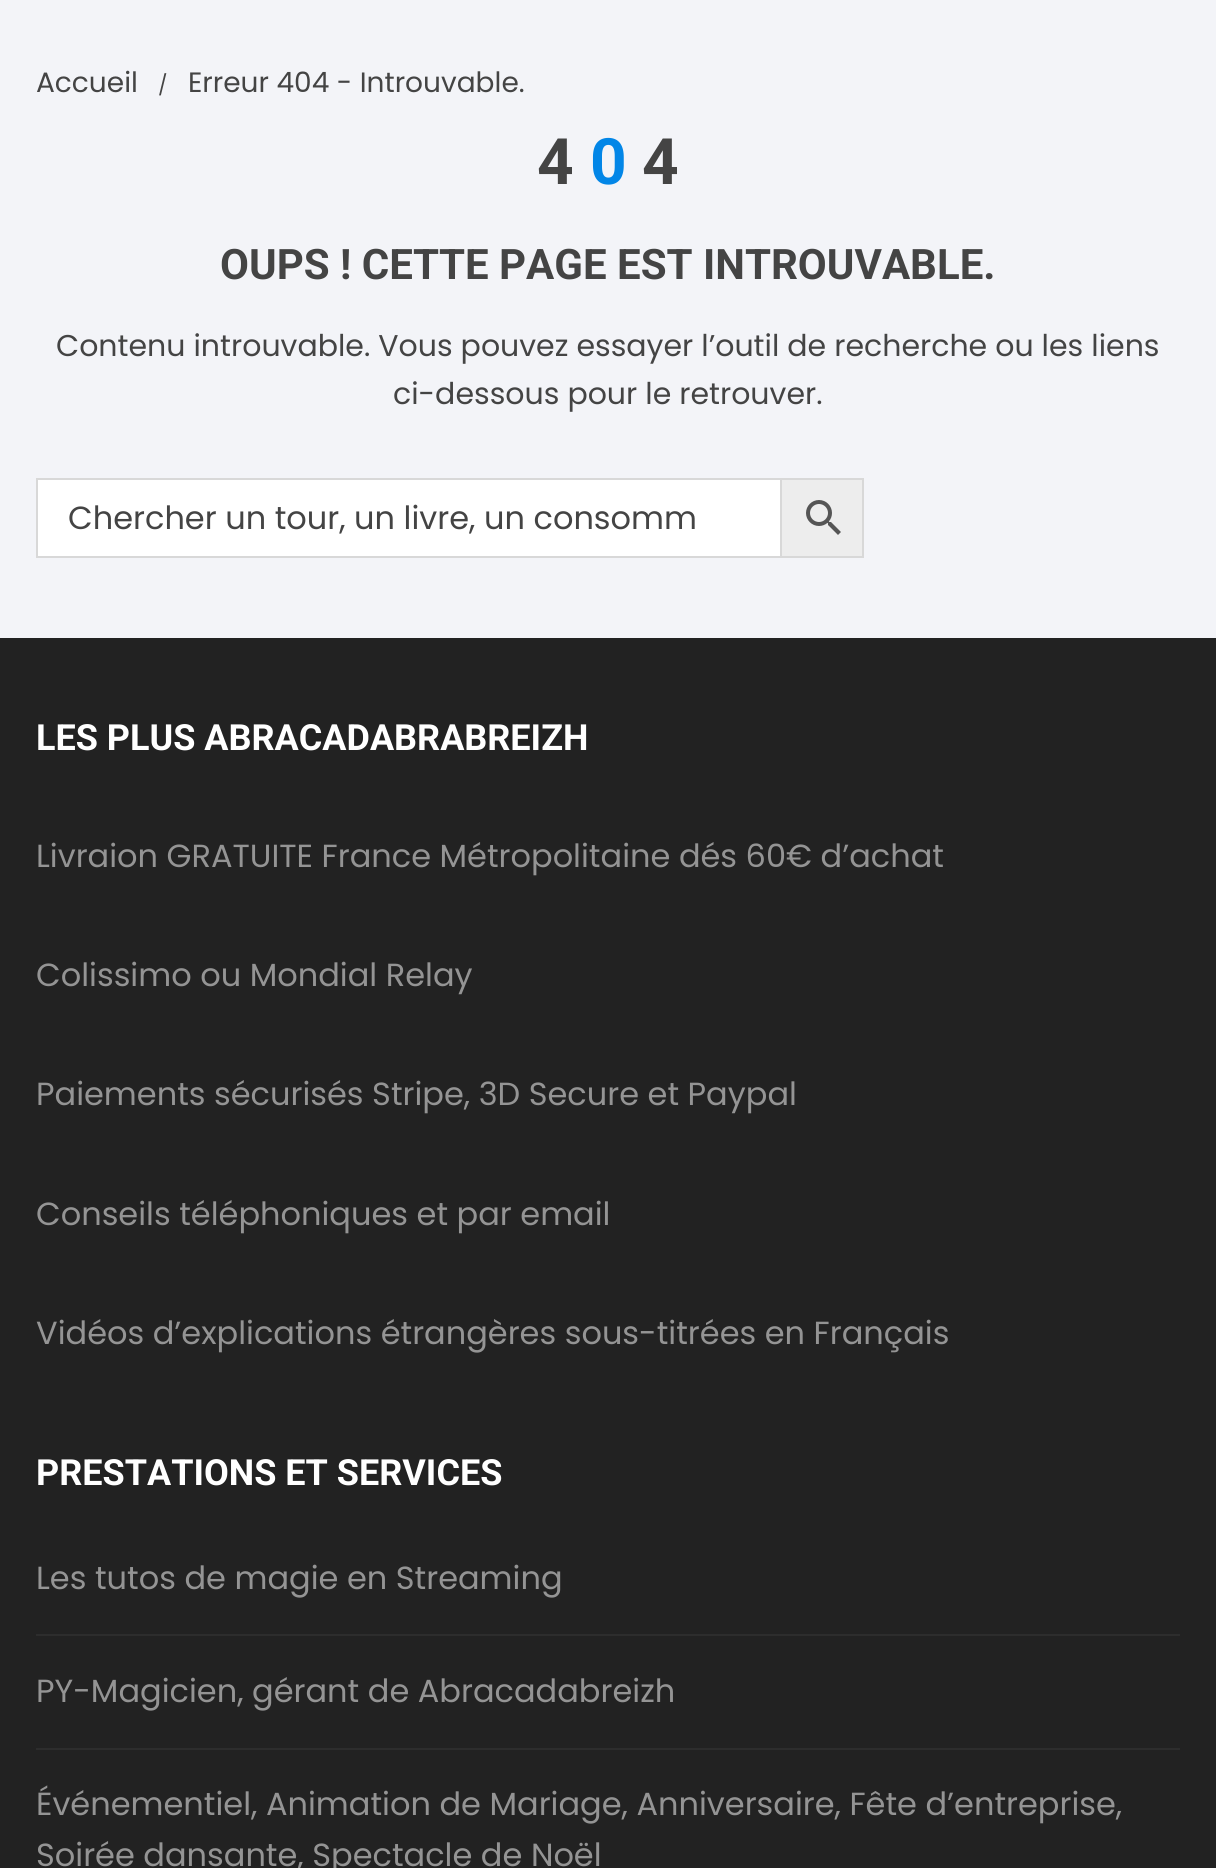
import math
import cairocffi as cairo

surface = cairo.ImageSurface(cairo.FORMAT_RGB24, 1216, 1868)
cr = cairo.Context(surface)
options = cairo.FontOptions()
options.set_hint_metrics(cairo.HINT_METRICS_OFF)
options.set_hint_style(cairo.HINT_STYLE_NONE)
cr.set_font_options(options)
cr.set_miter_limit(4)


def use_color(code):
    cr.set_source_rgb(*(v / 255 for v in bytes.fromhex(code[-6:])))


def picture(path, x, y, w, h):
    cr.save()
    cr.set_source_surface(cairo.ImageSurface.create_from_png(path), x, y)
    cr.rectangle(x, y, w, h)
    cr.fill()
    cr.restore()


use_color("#f3f4f8")
cr.paint()
cr.select_font_face("Poppins")
cr.set_font_size(28)
use_color("#444444")
cr.move_to(36, 92)
cr.show_text("Accueil")
cr.set_font_size(20)
cr.move_to(158, 92)
cr.show_text("/")
cr.set_font_size(28)
cr.move_to(188, 92)
cr.show_text("Erreur 404 - Introuvable.")
cr.select_font_face("Roboto", cairo.FONT_SLANT_NORMAL, cairo.FONT_WEIGHT_BOLD)
cr.set_font_size(64)
cr.move_to(537, 184)
cr.show_text("4")
use_color("#0286e7")
cr.move_to(590, 184)
cr.show_text("0")
use_color("#444444")
cr.move_to(642, 184)
cr.show_text("4")
cr.set_font_size(42)
cr.move_to(220, 279)
cr.show_text("OUPS ! CETTE PAGE EST INTROUVABLE.")
cr.select_font_face("Poppins")
cr.set_font_size(30)
cr.move_to(56, 356)
cr.show_text("Contenu introuvable. Vous pouvez essayer l’outil de recherche ou les liens")
cr.move_to(393, 404)
cr.show_text("ci-dessous pour le retrouver.")
use_color("#ffffff")
cr.rectangle(38, 480, 742, 76)
cr.fill()
use_color("#ededed")
cr.rectangle(781, 479, 82, 78)
cr.fill_preserve()
use_color("#d8d8d8")
cr.stroke()
cr.rectangle(37, 479, 744, 78)
cr.stroke()
cr.set_font_size(32)
use_color("#444444")
cr.move_to(68, 529)
cr.show_text("Chercher un tour, un livre, un consomm")
picture("img1.png", 806, 500, 35, 35)
use_color("#222222")
cr.rectangle(0, 638, 1216, 1230)
cr.fill()
cr.select_font_face("Roboto", cairo.FONT_SLANT_NORMAL, cairo.FONT_WEIGHT_BOLD)
cr.set_font_size(36)
use_color("#ffffff")
cr.move_to(36, 750)
cr.show_text("LES PLUS ABRACADABRABREIZH")
cr.select_font_face("Poppins")
cr.set_font_size(32)
use_color("#949494")
cr.move_to(36, 867)
cr.show_text("Livraion GRATUITE France Métropolitaine dés 60€ d’achat")
cr.move_to(36, 986)
cr.show_text("Colissimo ou Mondial Relay")
cr.move_to(36, 1105)
cr.show_text("Paiements sécurisés Stripe, 3D Secure et Paypal")
cr.move_to(36, 1225)
cr.show_text("Conseils téléphoniques et par email")
cr.move_to(36, 1344)
cr.show_text("Vidéos d’explications étrangères sous-titrées en Français")
cr.select_font_face("Roboto", cairo.FONT_SLANT_NORMAL, cairo.FONT_WEIGHT_BOLD)
cr.set_font_size(36)
use_color("#ffffff")
cr.move_to(36, 1485)
cr.show_text("PRESTATIONS ET SERVICES")
use_color("#2d2d2d")
cr.rectangle(36, 1634, 1144, 2)
cr.fill()
cr.select_font_face("Poppins")
cr.set_font_size(32)
use_color("#949494")
cr.move_to(36, 1589)
cr.show_text("Les tutos de magie en Streaming")
use_color("#2d2d2d")
cr.rectangle(36, 1748, 1144, 2)
cr.fill()
use_color("#949494")
cr.move_to(36, 1702)
cr.show_text("PY-Magicien, gérant de Abracadabreizh")
cr.move_to(36, 1815)
cr.show_text("Événementiel, Animation de Mariage, Anniversaire, Fête d’entreprise,")
cr.move_to(36, 1866)
cr.show_text("Soirée dansante, Spectacle de Noël")
surface.write_to_png("result.png")
